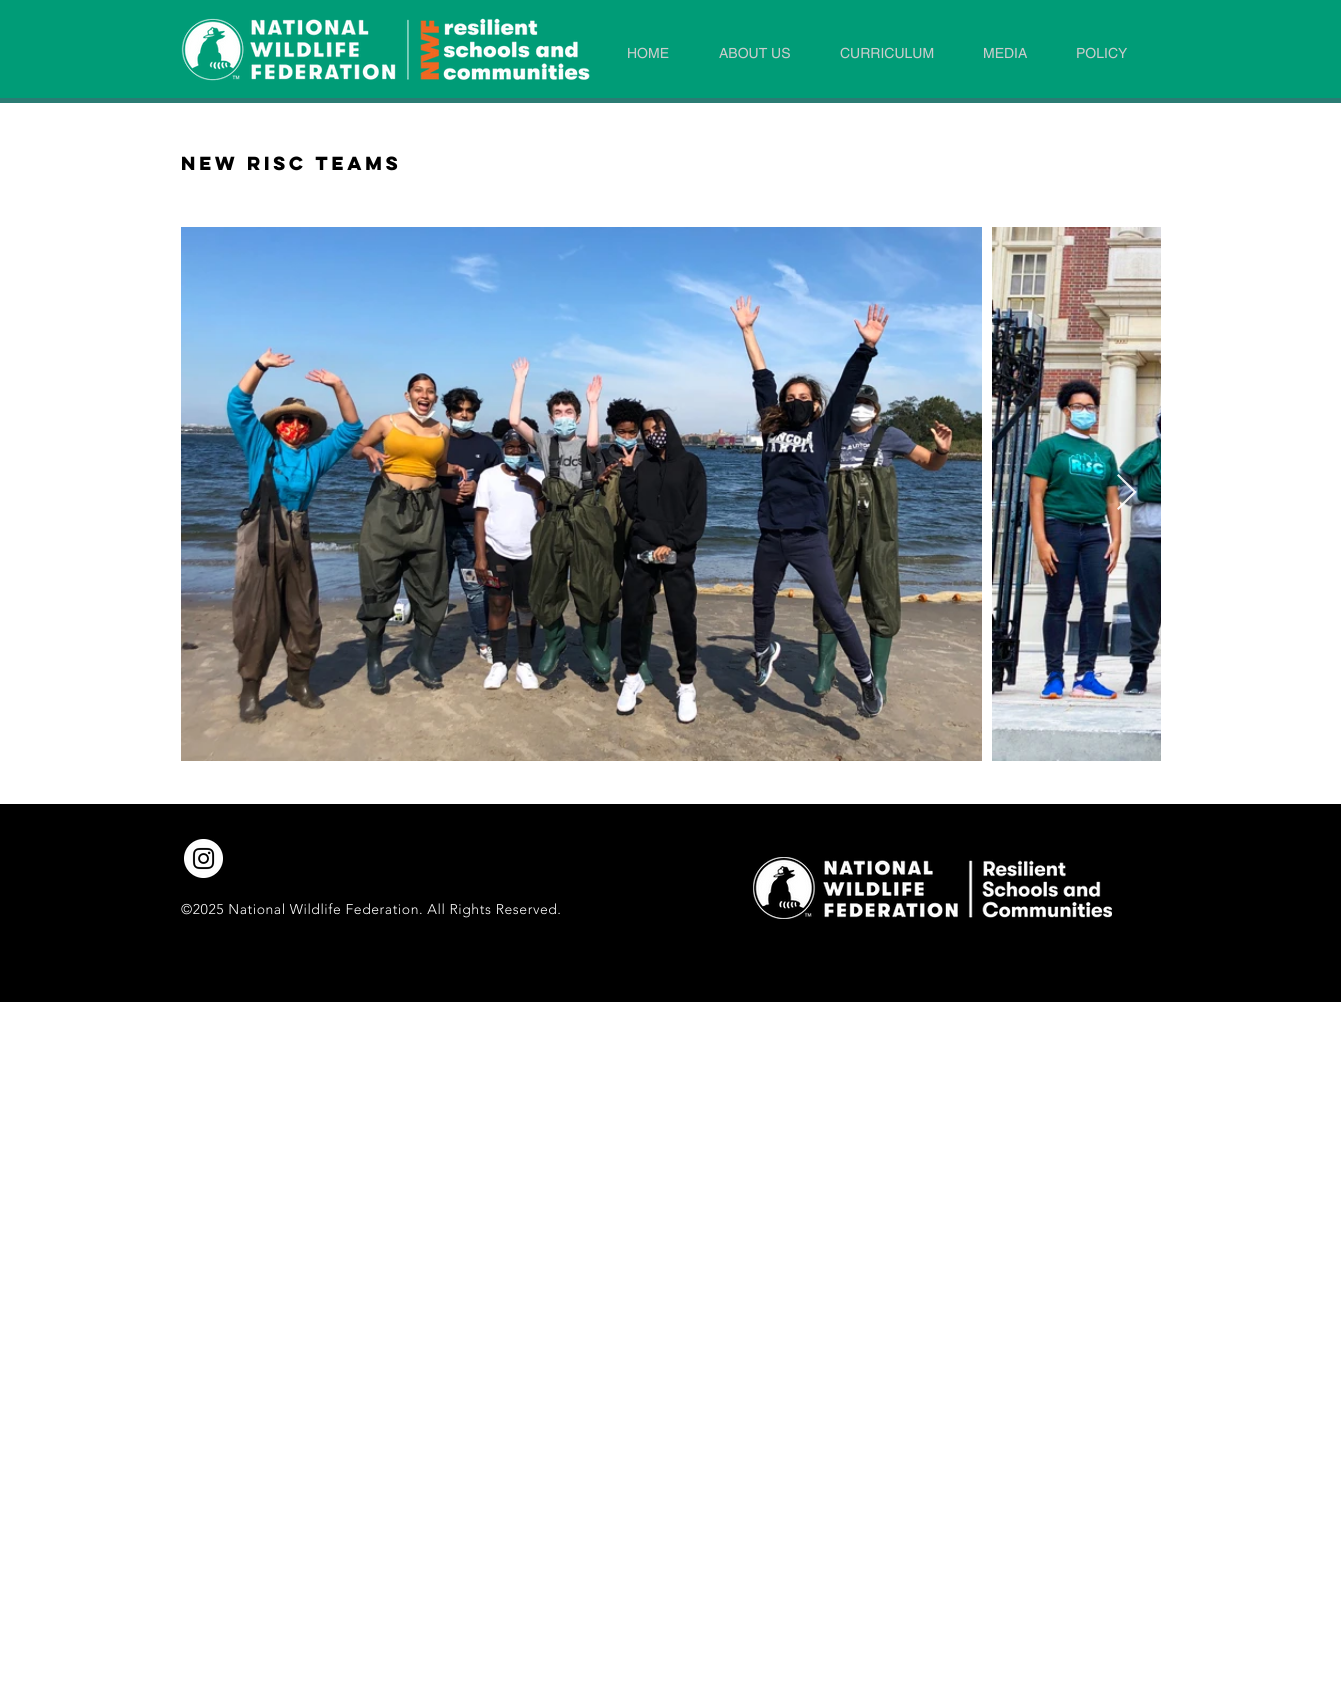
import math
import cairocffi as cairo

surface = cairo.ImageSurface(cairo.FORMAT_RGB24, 1341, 1700)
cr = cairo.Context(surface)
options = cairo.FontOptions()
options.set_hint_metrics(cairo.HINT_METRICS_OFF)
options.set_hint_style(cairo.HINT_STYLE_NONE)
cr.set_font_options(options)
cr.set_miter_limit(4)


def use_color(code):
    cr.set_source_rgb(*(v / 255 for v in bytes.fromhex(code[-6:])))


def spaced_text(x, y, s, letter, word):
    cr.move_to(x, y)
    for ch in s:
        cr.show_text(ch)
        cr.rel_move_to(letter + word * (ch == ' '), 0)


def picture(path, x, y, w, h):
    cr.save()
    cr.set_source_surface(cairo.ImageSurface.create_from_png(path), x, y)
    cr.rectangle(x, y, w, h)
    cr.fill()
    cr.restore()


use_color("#ffffff")
cr.paint()
use_color("#009c77")
cr.rectangle(0, 0, 1341, 98)
cr.fill()
picture("img1.png", 181, 18, 409, 63)
cr.select_font_face("helvetica")
cr.set_font_size(14)
use_color("#cccccc")
cr.move_to(627, 58)
cr.show_text("HOME")
cr.move_to(719, 58)
cr.show_text("ABOUT US")
cr.move_to(840, 58)
cr.show_text("CURRICULUM")
cr.move_to(983, 58)
cr.show_text("MEDIA")
cr.move_to(1076, 58)
cr.show_text("POLICY")
use_color("#2b7c74")
cr.rectangle(0, 98, 1341, 5)
cr.fill()
cr.select_font_face("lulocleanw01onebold", cairo.FONT_SLANT_NORMAL, cairo.FONT_WEIGHT_BOLD)
cr.set_font_size(17)
use_color("#000000")
cr.move_to(181, 170)
cr.show_text("New RiSC Teams")
picture("img2.png", 181, 227, 801, 534)
picture("img3.png", 992, 227, 169, 534)
cr.set_source_rgba(1, 1, 1, 0.9)
cr.new_path()
cr.move_to(1117, 475.5)
cr.line_to(1118.5, 474)
cr.line_to(1136.5, 492)
cr.line_to(1118.5, 510)
cr.line_to(1117, 508.5)
cr.line_to(1133.5, 492)
cr.close_path()
cr.fill()
use_color("#000000")
cr.rectangle(0, 804, 1341, 198)
cr.fill()
picture("img4.png", 184, 839, 39, 39)
picture("img5.png", 753, 857, 359, 62)
cr.select_font_face("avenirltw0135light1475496 Light")
cr.set_font_size(14)
use_color("#ffffff")
spaced_text(181, 914, "©2025 National Wildlife Federation. All Rights Reserved.", 0.55, 0)
surface.write_to_png("result.png")
